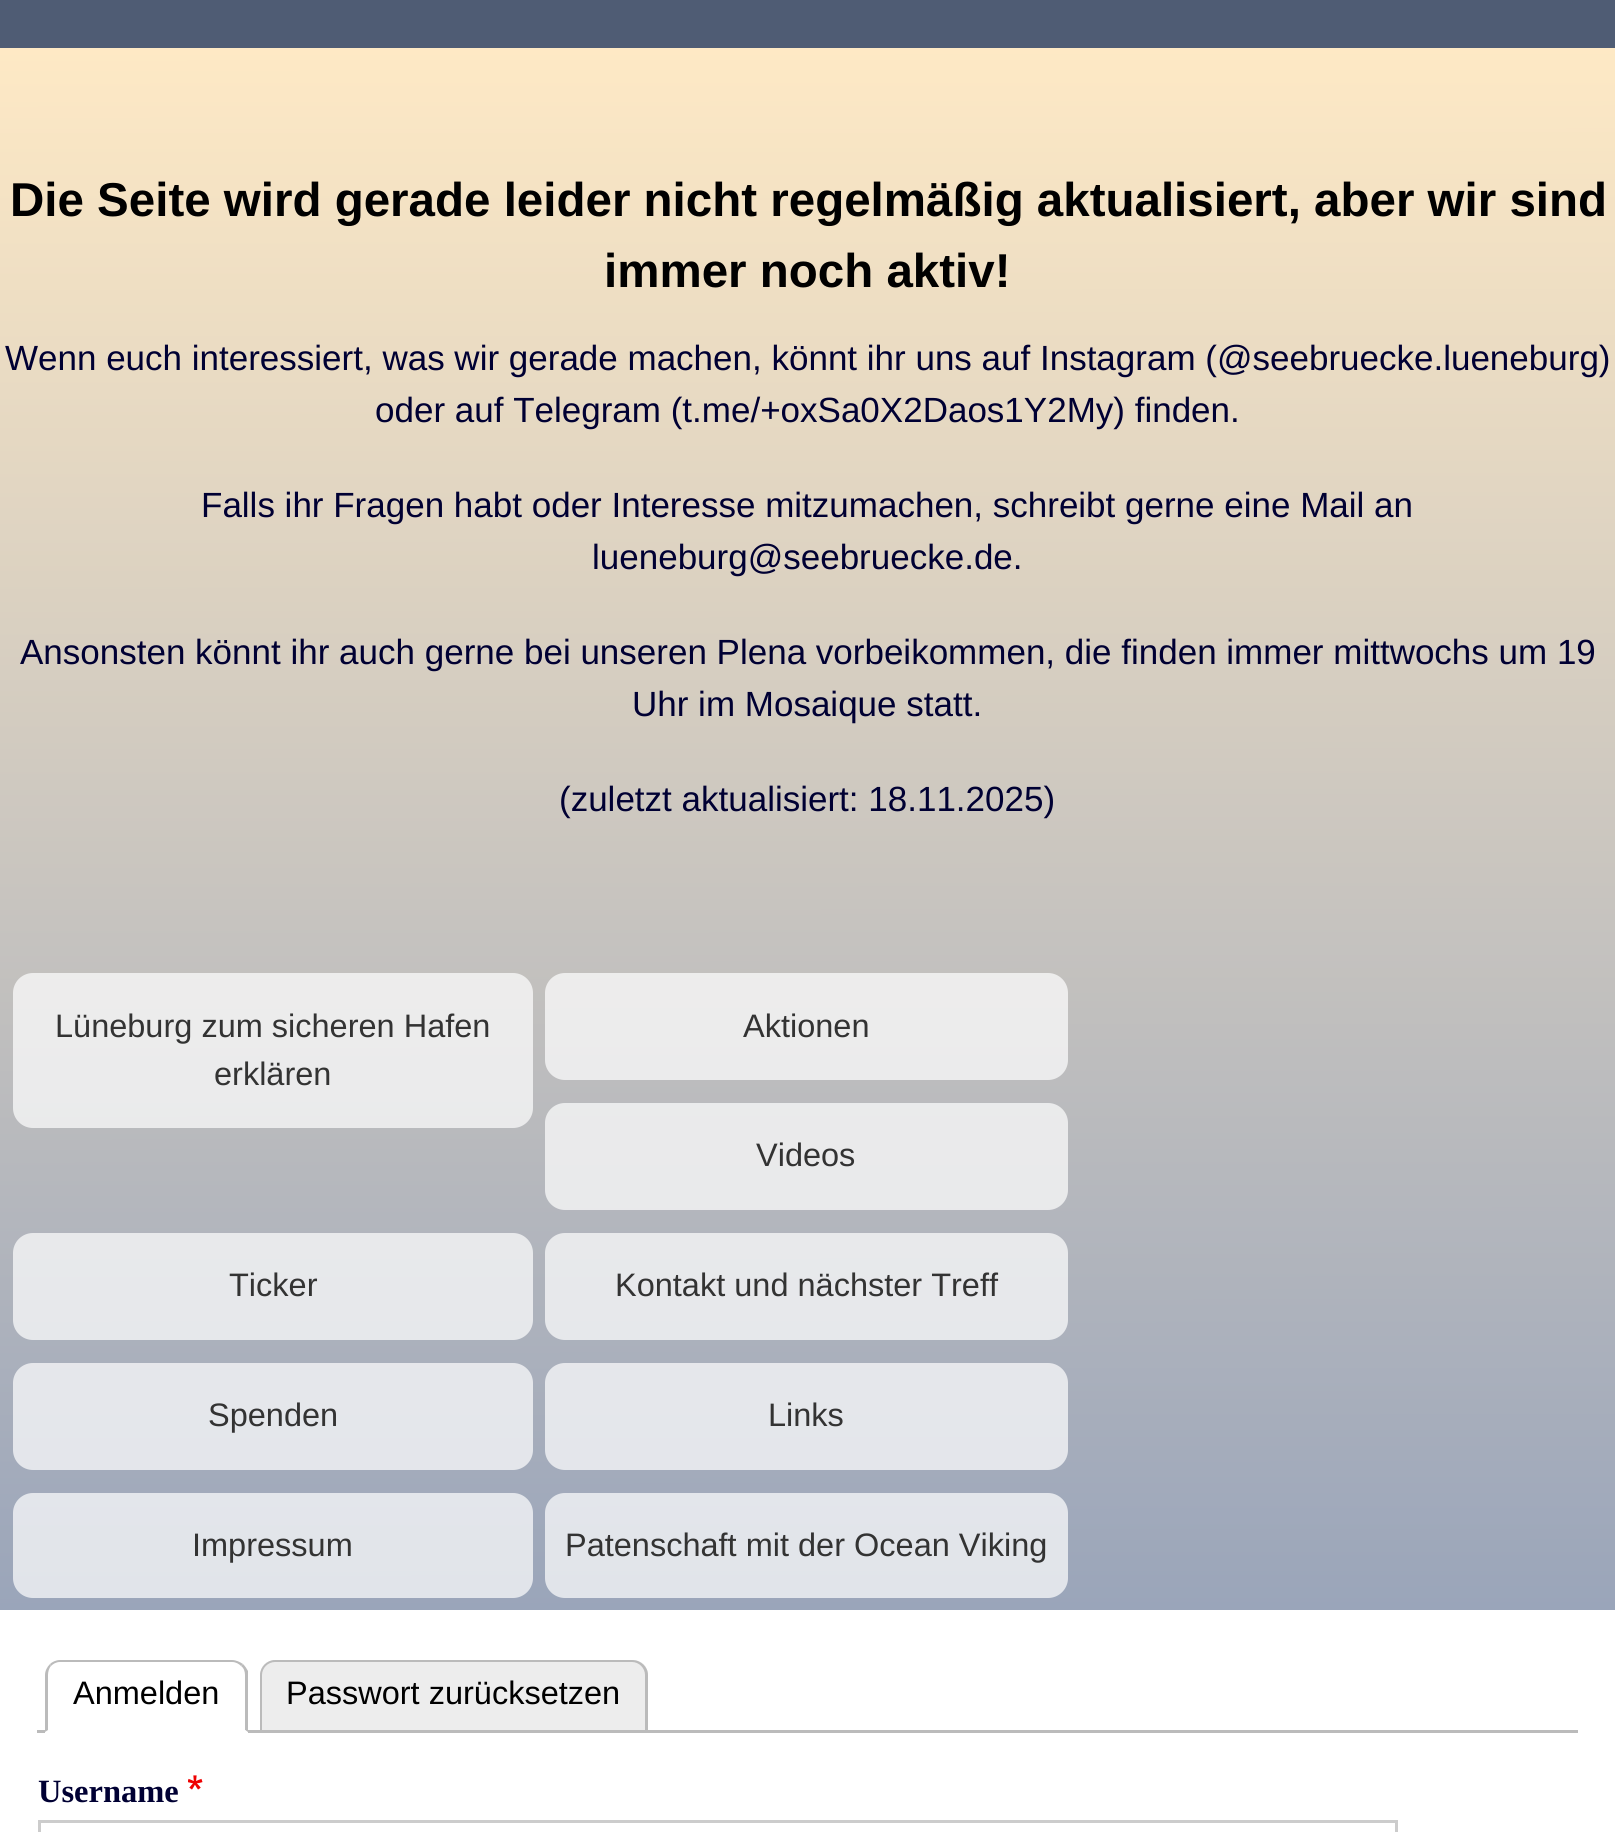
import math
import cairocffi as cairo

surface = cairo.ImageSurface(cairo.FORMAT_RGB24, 1615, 1832)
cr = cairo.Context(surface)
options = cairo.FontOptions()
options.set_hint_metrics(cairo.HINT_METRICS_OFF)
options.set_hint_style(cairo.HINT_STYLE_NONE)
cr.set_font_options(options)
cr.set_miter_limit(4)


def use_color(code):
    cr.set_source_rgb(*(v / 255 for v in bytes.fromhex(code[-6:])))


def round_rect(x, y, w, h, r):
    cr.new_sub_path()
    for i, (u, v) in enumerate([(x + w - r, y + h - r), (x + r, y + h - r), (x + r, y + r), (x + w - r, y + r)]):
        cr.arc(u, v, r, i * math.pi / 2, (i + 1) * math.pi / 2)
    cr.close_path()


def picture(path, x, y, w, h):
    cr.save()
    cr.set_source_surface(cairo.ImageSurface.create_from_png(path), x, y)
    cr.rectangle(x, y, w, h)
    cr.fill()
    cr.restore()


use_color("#4f5c74")
cr.paint()
use_color("#ffffff")
cr.rectangle(0, 1610, 1615, 222)
cr.fill()
gradient = cairo.LinearGradient(807, 47, 808, 1610)
gradient.add_color_stop_rgba(0, 0.996, 0.914, 0.773, 1)
gradient.add_color_stop_rgba(1, 0.604, 0.647, 0.729, 1)
cr.set_source(gradient)
cr.rectangle(0, 48, 1615, 1562)
cr.fill()
cr.select_font_face("Liberation Sans", cairo.FONT_SLANT_NORMAL, cairo.FONT_WEIGHT_BOLD)
cr.set_font_size(47.5)
use_color("#000000")
cr.move_to(10, 216)
cr.show_text("Die Seite wird gerade leider nicht regelmäßig aktualisiert, aber wir sind")
cr.move_to(604, 287)
cr.show_text("immer noch aktiv!")
cr.select_font_face("Liberation Sans")
cr.set_font_size(35)
use_color("#000033")
cr.move_to(5, 370)
cr.show_text("Wenn euch interessiert, was wir gerade machen, könnt ihr uns auf Instagram (@seebruecke.lueneburg)")
cr.move_to(375, 422)
cr.show_text("oder auf Telegram (t.me/+oxSa0X2Daos1Y2My) finden.")
cr.move_to(201, 517)
cr.show_text("Falls ihr Fragen habt oder Interesse mitzumachen, schreibt gerne eine Mail an")
cr.move_to(592, 569)
cr.show_text("lueneburg@seebruecke.de.")
cr.move_to(20, 664)
cr.show_text("Ansonsten könnt ihr auch gerne bei unseren Plena vorbeikommen, die finden immer mittwochs um 19")
cr.move_to(632, 716)
cr.show_text("Uhr im Mosaique statt.")
cr.move_to(559, 811)
cr.show_text("(zuletzt aktualisiert: 18.11.2025)")
cr.set_source_rgba(1, 1, 1, 0.7)
round_rect(13, 973, 520, 155, 20)
cr.fill()
cr.set_font_size(32.5)
use_color("#333333")
cr.move_to(55, 1037)
cr.show_text("Lüneburg zum sicheren Hafen")
cr.move_to(214, 1085)
cr.show_text("erklären")
cr.set_source_rgba(1, 1, 1, 0.7)
round_rect(545, 973, 523, 107, 20)
cr.fill()
use_color("#333333")
cr.move_to(743, 1037)
cr.show_text("Aktionen")
cr.set_source_rgba(1, 1, 1, 0.7)
round_rect(545, 1103, 523, 107, 20)
cr.fill()
use_color("#333333")
cr.move_to(756, 1166)
cr.show_text("Videos")
cr.set_source_rgba(1, 1, 1, 0.7)
round_rect(13, 1233, 520, 107, 20)
cr.fill()
use_color("#333333")
cr.move_to(229, 1296)
cr.show_text("Ticker")
cr.set_source_rgba(1, 1, 1, 0.7)
round_rect(545, 1233, 523, 107, 20)
cr.fill()
use_color("#333333")
cr.move_to(615, 1296)
cr.show_text("Kontakt und nächster Treff")
cr.set_source_rgba(1, 1, 1, 0.7)
round_rect(13, 1363, 520, 107, 20)
cr.fill()
use_color("#333333")
cr.move_to(208, 1426)
cr.show_text("Spenden")
cr.set_source_rgba(1, 1, 1, 0.7)
round_rect(545, 1363, 523, 107, 20)
cr.fill()
use_color("#333333")
cr.move_to(768, 1426)
cr.show_text("Links")
cr.set_source_rgba(1, 1, 1, 0.7)
round_rect(13, 1493, 520, 105, 20)
cr.fill()
use_color("#333333")
cr.move_to(192, 1556)
cr.show_text("Impressum")
cr.set_source_rgba(1, 1, 1, 0.7)
round_rect(545, 1493, 523, 105, 20)
cr.fill()
use_color("#333333")
cr.move_to(565, 1556)
cr.show_text("Patenschaft mit der Ocean Viking")
use_color("#bbbbbb")
cr.rectangle(37, 1730, 1541, 3)
cr.fill()
use_color("#ffffff")
cr.new_path()
cr.move_to(60, 1660)
cr.line_to(233, 1660)
cr.curve_to(241.5, 1660, 248, 1666.5, 248, 1675)
cr.line_to(248, 1733)
cr.line_to(45, 1733)
cr.line_to(45, 1675)
cr.curve_to(45, 1666.5, 51.5, 1660, 60, 1660)
cr.close_path()
cr.fill()
use_color("#bbbbbb")
cr.new_path()
cr.move_to(60, 1660)
cr.curve_to(56, 1660, 52, 1662, 50, 1664)
cr.line_to(51, 1666)
cr.curve_to(53, 1664, 56, 1662, 60, 1662)
cr.line_to(232, 1662)
cr.curve_to(236, 1662, 239, 1664, 241, 1666)
cr.line_to(243, 1664)
cr.curve_to(240, 1662, 236, 1660, 232, 1660)
cr.close_path()
cr.fill()
cr.new_path()
cr.move_to(248, 1732)
cr.line_to(245, 1730)
cr.line_to(245, 1675)
cr.curve_to(245, 1672, 244, 1668, 241, 1666)
cr.line_to(243, 1664)
cr.curve_to(245, 1666, 247, 1669, 248, 1671)
cr.close_path()
cr.fill()
use_color("#ffffff")
cr.new_path()
cr.move_to(247, 1732)
cr.line_to(46, 1732)
cr.line_to(48, 1730)
cr.line_to(245, 1730)
cr.close_path()
cr.fill()
use_color("#bbbbbb")
cr.new_path()
cr.move_to(45, 1675)
cr.line_to(45, 1732)
cr.line_to(48, 1730)
cr.line_to(48, 1675)
cr.curve_to(48, 1672, 49, 1668, 51, 1666)
cr.line_to(50, 1664)
cr.curve_to(47, 1667, 45, 1671, 45, 1675)
cr.close_path()
cr.fill()
use_color("#000000")
cr.move_to(73, 1704)
cr.show_text("Anmelden")
use_color("#ededed")
cr.new_path()
cr.move_to(275, 1660)
cr.line_to(633, 1660)
cr.curve_to(641.5, 1660, 648, 1666.5, 648, 1675)
cr.line_to(648, 1730)
cr.line_to(260, 1730)
cr.line_to(260, 1675)
cr.curve_to(260, 1666.5, 266.5, 1660, 275, 1660)
cr.close_path()
cr.fill()
use_color("#bbbbbb")
cr.set_fill_rule(cairo.FILL_RULE_EVEN_ODD)
cr.new_path()
cr.move_to(275, 1660)
cr.line_to(632, 1660)
cr.curve_to(641, 1660, 648, 1667, 648, 1675)
cr.line_to(648, 1730)
cr.line_to(260, 1730)
cr.line_to(260, 1675)
cr.curve_to(260, 1667, 267, 1660, 275, 1660)
cr.close_path()
cr.move_to(275, 1662)
cr.line_to(632, 1662)
cr.curve_to(639, 1662, 645, 1668, 645, 1675)
cr.line_to(645, 1730)
cr.line_to(262, 1730)
cr.line_to(262, 1675)
cr.curve_to(262, 1668, 268, 1662, 275, 1662)
cr.close_path()
cr.fill()
use_color("#000000")
cr.move_to(286, 1704)
cr.show_text("Passwort zurücksetzen")
cr.select_font_face("Liberation Serif", cairo.FONT_SLANT_NORMAL, cairo.FONT_WEIGHT_BOLD)
use_color("#000033")
cr.move_to(38, 1802)
cr.show_text("Username")
picture("img1.png", 188, 1775, 15, 15)
cr.rectangle(39.5, 1821.5, 1357, 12)
use_color("#cccccc")
cr.set_line_width(3)
cr.stroke()
surface.write_to_png("result.png")
